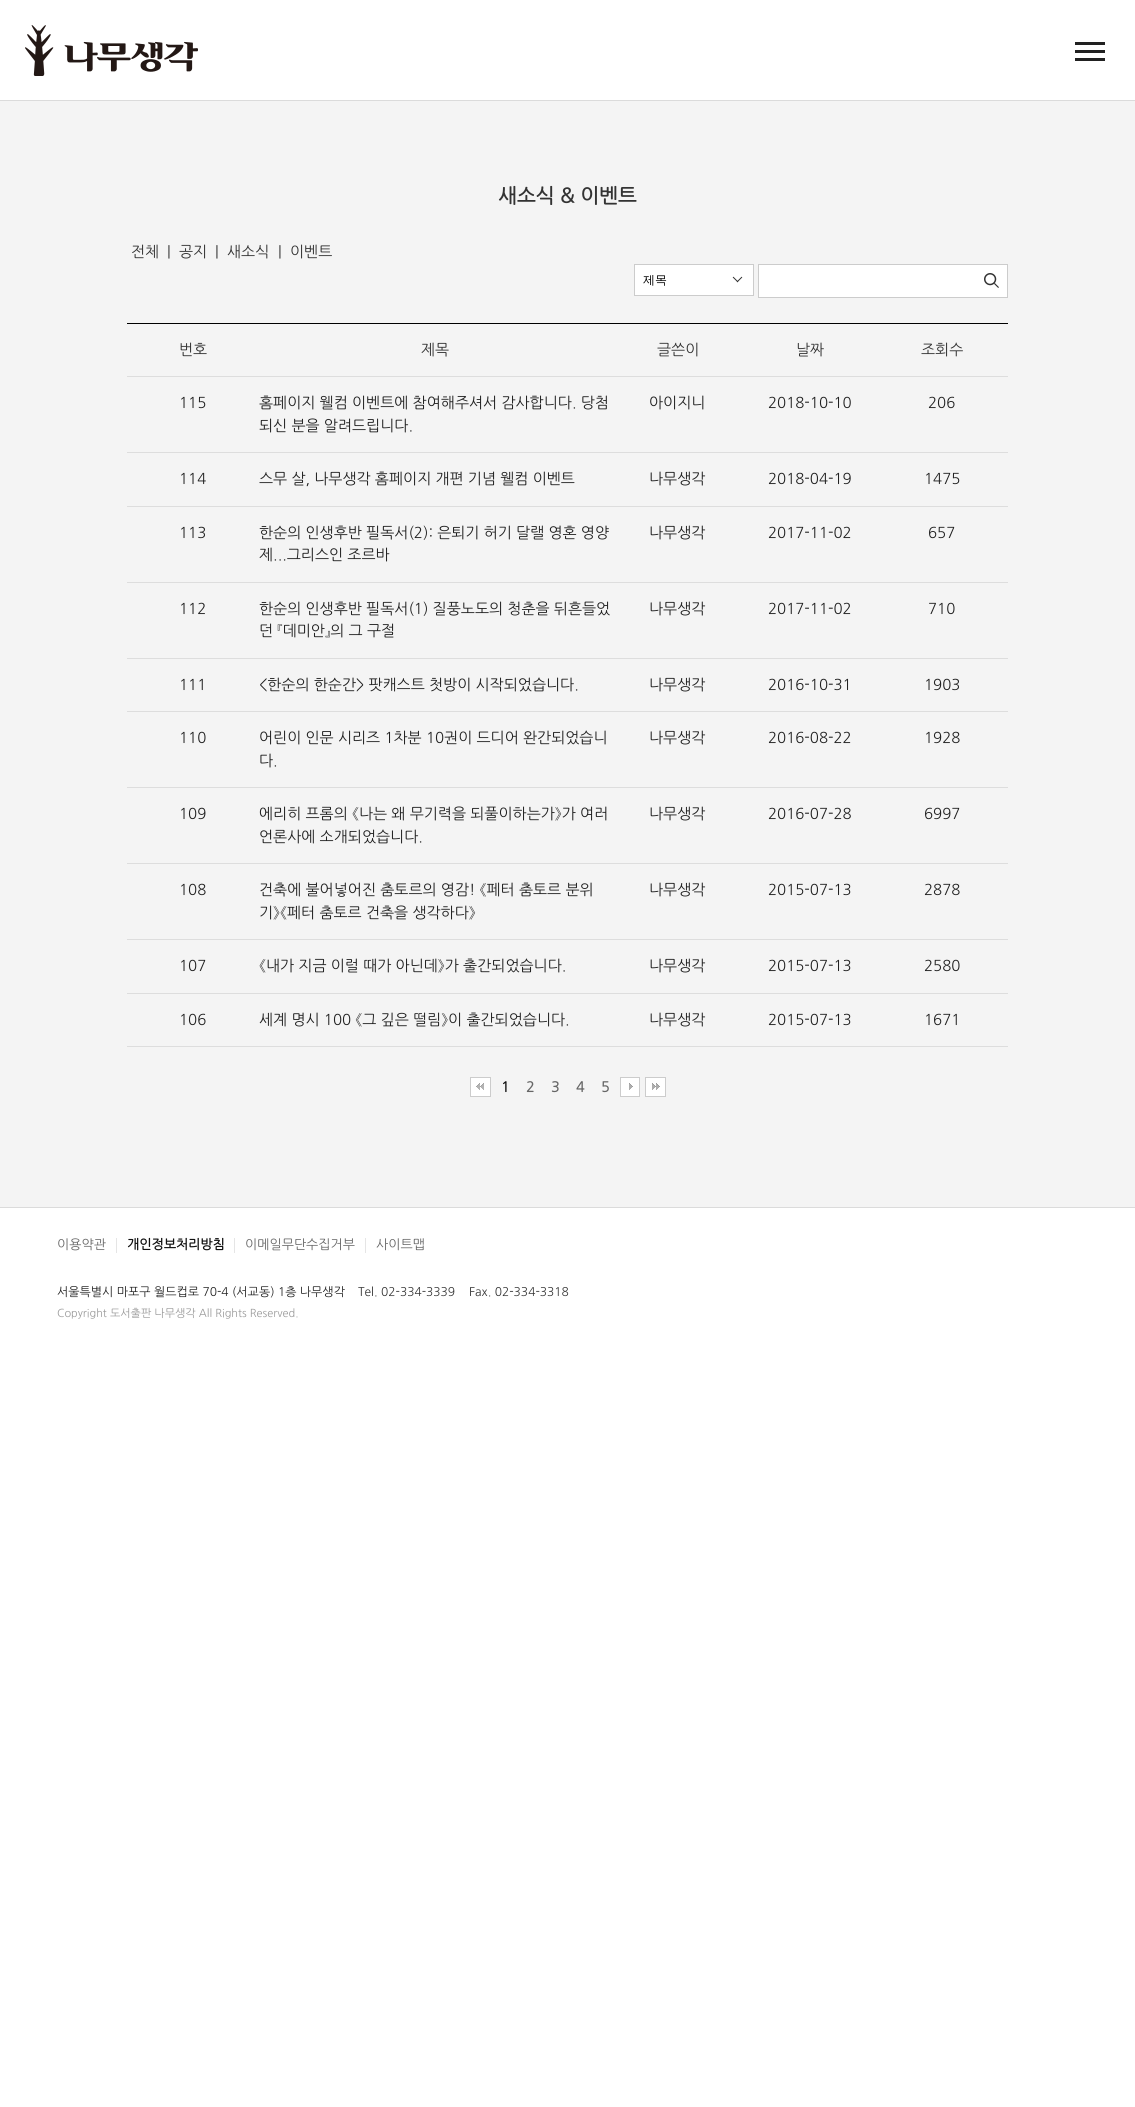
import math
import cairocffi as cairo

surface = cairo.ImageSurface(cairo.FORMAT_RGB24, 1135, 2107)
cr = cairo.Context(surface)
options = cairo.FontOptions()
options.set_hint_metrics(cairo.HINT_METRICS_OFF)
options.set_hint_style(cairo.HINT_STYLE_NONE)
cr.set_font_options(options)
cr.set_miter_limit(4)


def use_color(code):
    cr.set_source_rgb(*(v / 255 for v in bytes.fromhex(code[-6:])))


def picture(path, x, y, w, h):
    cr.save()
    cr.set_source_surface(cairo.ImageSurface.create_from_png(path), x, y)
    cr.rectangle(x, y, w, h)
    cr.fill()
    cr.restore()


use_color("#ffffff")
cr.paint()
picture("img1.png", 25, 25, 173, 51)
use_color("#212121")
cr.rectangle(1075, 42, 30, 3)
cr.fill()
cr.rectangle(1075, 50, 30, 3)
cr.fill()
cr.rectangle(1075, 58, 30, 3)
cr.fill()
use_color("#f4f4f4")
cr.rectangle(0, 101, 1135, 1106)
cr.fill()
use_color("#dbdbdb")
cr.rectangle(0, 100, 1135, 1)
cr.fill()
cr.rectangle(0, 1207, 1135, 1)
cr.fill()
cr.select_font_face("NanumGothic", cairo.FONT_SLANT_NORMAL, cairo.FONT_WEIGHT_BOLD)
cr.set_font_size(20)
use_color("#333333")
cr.move_to(498, 203)
cr.show_text("새소식 & 이벤트")
cr.select_font_face("NanumGothic")
cr.set_font_size(15)
cr.move_to(131, 257)
cr.show_text("전체")
cr.move_to(167, 257)
cr.show_text("|")
cr.move_to(179, 257)
cr.show_text("공지")
cr.move_to(215, 257)
cr.show_text("|")
cr.move_to(227, 257)
cr.show_text("새소식")
cr.move_to(278, 257)
cr.show_text("|")
cr.move_to(290, 257)
cr.show_text("이벤트")
use_color("#ffffff")
cr.rectangle(635, 265, 118, 30)
cr.fill()
picture("img2.png", 732, 276, 11, 7)
cr.rectangle(634.5, 264.5, 119, 31)
use_color("#cccccc")
cr.set_line_width(1)
cr.stroke()
cr.select_font_face("WenQuanYi Zen Hei Medium")
cr.set_font_size(12)
use_color("#000000")
cr.move_to(643, 284)
cr.show_text("제목")
use_color("#ffffff")
cr.rectangle(758.5, 264.5, 249, 33)
cr.fill_preserve()
use_color("#cccccc")
cr.stroke()
picture("img3.png", 984, 273, 15, 15)
use_color("#000000")
cr.rectangle(127, 323, 881, 1)
cr.fill()
use_color("#dddddd")
cr.rectangle(127, 376, 881, 1)
cr.fill()
cr.select_font_face("NanumGothic")
cr.set_font_size(15)
use_color("#333333")
cr.move_to(179, 355)
cr.show_text("번호")
cr.move_to(421, 355)
cr.show_text("제목")
cr.move_to(657, 355)
cr.show_text("글쓴이")
cr.move_to(796, 355)
cr.show_text("날짜")
cr.move_to(921, 355)
cr.show_text("조회수")
use_color("#dddddd")
cr.rectangle(127, 452, 881, 1)
cr.fill()
use_color("#212121")
cr.move_to(179, 408)
cr.show_text("115")
cr.move_to(259, 408)
cr.show_text("홈페이지 웰컴 이벤트에 참여해주셔서 감사합니다. 당첨")
cr.move_to(259, 431)
cr.show_text("되신 분을 알려드립니다.")
cr.move_to(649, 408)
cr.show_text("아이지니")
cr.move_to(768, 408)
cr.show_text("2018-10-10")
cr.move_to(928, 408)
cr.show_text("206")
use_color("#dddddd")
cr.rectangle(127, 506, 881, 1)
cr.fill()
use_color("#212121")
cr.move_to(179, 484)
cr.show_text("114")
cr.move_to(259, 484)
cr.show_text("스무 살, 나무생각 홈페이지 개편 기념 웰컴 이벤트")
cr.move_to(649, 484)
cr.show_text("나무생각")
cr.move_to(768, 484)
cr.show_text("2018-04-19")
cr.move_to(924, 484)
cr.show_text("1475")
use_color("#dddddd")
cr.rectangle(127, 582, 881, 1)
cr.fill()
use_color("#212121")
cr.move_to(179, 538)
cr.show_text("113")
cr.move_to(259, 538)
cr.show_text("한순의 인생후반 필독서(2): 은퇴기 허기 달랠 영혼 영양")
cr.move_to(259, 560)
cr.show_text("제...그리스인 조르바")
cr.move_to(649, 538)
cr.show_text("나무생각")
cr.move_to(768, 538)
cr.show_text("2017-11-02")
cr.move_to(928, 538)
cr.show_text("657")
use_color("#dddddd")
cr.rectangle(127, 658, 881, 1)
cr.fill()
use_color("#212121")
cr.move_to(179, 614)
cr.show_text("112")
cr.move_to(259, 614)
cr.show_text("한순의 인생후반 필독서(1) 질풍노도의 청춘을 뒤흔들었")
cr.move_to(259, 636)
cr.show_text("던 『데미안』의 그 구절")
cr.move_to(649, 614)
cr.show_text("나무생각")
cr.move_to(768, 614)
cr.show_text("2017-11-02")
cr.move_to(928, 614)
cr.show_text("710")
use_color("#dddddd")
cr.rectangle(127, 711, 881, 1)
cr.fill()
use_color("#212121")
cr.move_to(179, 690)
cr.show_text("111")
cr.move_to(259, 690)
cr.show_text("<한순의 한순간> 팟캐스트 첫방이 시작되었습니다.")
cr.move_to(649, 690)
cr.show_text("나무생각")
cr.move_to(768, 690)
cr.show_text("2016-10-31")
cr.move_to(924, 690)
cr.show_text("1903")
use_color("#dddddd")
cr.rectangle(127, 787, 881, 1)
cr.fill()
use_color("#212121")
cr.move_to(179, 743)
cr.show_text("110")
cr.move_to(259, 743)
cr.show_text("어린이 인문 시리즈 1차분 10권이 드디어 완간되었습니")
cr.move_to(259, 766)
cr.show_text("다.")
cr.move_to(649, 743)
cr.show_text("나무생각")
cr.move_to(768, 743)
cr.show_text("2016-08-22")
cr.move_to(924, 743)
cr.show_text("1928")
use_color("#dddddd")
cr.rectangle(127, 863, 881, 1)
cr.fill()
use_color("#212121")
cr.move_to(179, 819)
cr.show_text("109")
cr.move_to(259, 819)
cr.show_text("에리히 프롬의 《나는 왜 무기력을 되풀이하는가》가 여러")
cr.move_to(259, 842)
cr.show_text("언론사에 소개되었습니다.")
cr.move_to(649, 819)
cr.show_text("나무생각")
cr.move_to(768, 819)
cr.show_text("2016-07-28")
cr.move_to(924, 819)
cr.show_text("6997")
use_color("#dddddd")
cr.rectangle(127, 939, 881, 1)
cr.fill()
use_color("#212121")
cr.move_to(179, 895)
cr.show_text("108")
cr.move_to(259, 895)
cr.show_text("건축에 불어넣어진 춤토르의 영감! 《페터 춤토르 분위")
cr.move_to(259, 918)
cr.show_text("기》《페터 춤토르 건축을 생각하다》")
cr.move_to(649, 895)
cr.show_text("나무생각")
cr.move_to(768, 895)
cr.show_text("2015-07-13")
cr.move_to(924, 895)
cr.show_text("2878")
use_color("#dddddd")
cr.rectangle(127, 993, 881, 1)
cr.fill()
use_color("#212121")
cr.move_to(179, 971)
cr.show_text("107")
cr.move_to(259, 971)
cr.show_text("《내가 지금 이럴 때가 아닌데》가 출간되었습니다.")
cr.move_to(649, 971)
cr.show_text("나무생각")
cr.move_to(768, 971)
cr.show_text("2015-07-13")
cr.move_to(924, 971)
cr.show_text("2580")
use_color("#dddddd")
cr.rectangle(127, 1046, 881, 1)
cr.fill()
use_color("#212121")
cr.move_to(179, 1025)
cr.show_text("106")
cr.move_to(259, 1025)
cr.show_text("세계 명시 100 《그 깊은 떨림》이 출간되었습니다.")
cr.move_to(649, 1025)
cr.show_text("나무생각")
cr.move_to(768, 1025)
cr.show_text("2015-07-13")
cr.move_to(924, 1025)
cr.show_text("1671")
picture("img4.png", 470, 1077, 21, 20)
cr.select_font_face("NanumGothic", cairo.FONT_SLANT_NORMAL, cairo.FONT_WEIGHT_BOLD)
cr.set_font_size(14)
use_color("#111111")
cr.move_to(501, 1092)
cr.show_text("1")
use_color("#666666")
cr.move_to(526, 1092)
cr.show_text("2")
cr.move_to(551, 1092)
cr.show_text("3")
cr.move_to(576, 1092)
cr.show_text("4")
cr.move_to(601, 1092)
cr.show_text("5")
picture("img5.png", 620, 1077, 20, 20)
picture("img6.png", 645, 1077, 21, 20)
use_color("#e5e5e5")
cr.rectangle(116, 1238, 1, 15)
cr.fill()
cr.select_font_face("NanumGothic")
cr.set_font_size(13)
use_color("#666666")
cr.move_to(57, 1249)
cr.show_text("이용약관")
use_color("#e5e5e5")
cr.rectangle(234, 1238, 1, 15)
cr.fill()
cr.select_font_face("NanumGothic", cairo.FONT_SLANT_NORMAL, cairo.FONT_WEIGHT_BOLD)
use_color("#111111")
cr.move_to(127, 1249)
cr.show_text("개인정보처리방침")
use_color("#e5e5e5")
cr.rectangle(365, 1238, 1, 15)
cr.fill()
cr.select_font_face("NanumGothic")
use_color("#666666")
cr.move_to(245, 1249)
cr.show_text("이메일무단수집거부")
cr.move_to(376, 1249)
cr.show_text("사이트맵")
cr.set_font_size(12)
use_color("#212121")
cr.move_to(57, 1296)
cr.show_text("서울특별시 마포구 월드컵로 70-4 (서교동) 1층 나무생각")
use_color("#333333")
cr.move_to(358, 1296)
cr.show_text("Tel. 02-334-3339")
cr.move_to(469, 1296)
cr.show_text("Fax. 02-334-3318")
cr.set_font_size(11)
use_color("#999999")
cr.move_to(57, 1317)
cr.show_text("Copyright 도서출판 나무생각 All Rights Reserved.")
surface.write_to_png("result.png")
